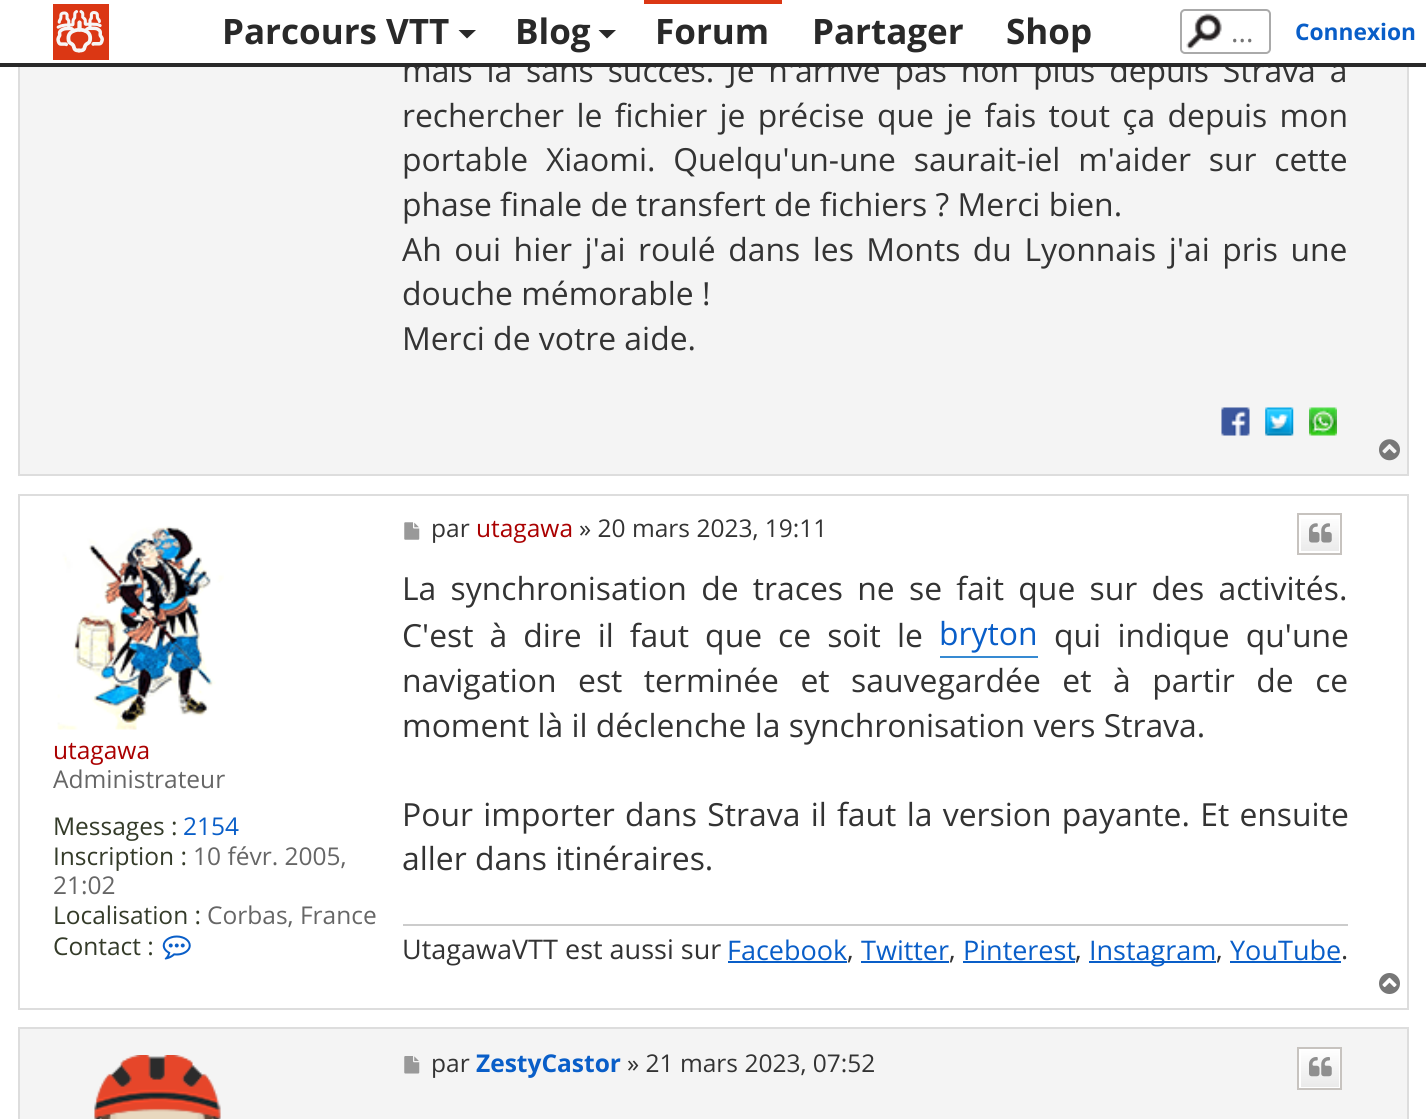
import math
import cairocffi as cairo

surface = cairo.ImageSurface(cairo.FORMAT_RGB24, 1426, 1119)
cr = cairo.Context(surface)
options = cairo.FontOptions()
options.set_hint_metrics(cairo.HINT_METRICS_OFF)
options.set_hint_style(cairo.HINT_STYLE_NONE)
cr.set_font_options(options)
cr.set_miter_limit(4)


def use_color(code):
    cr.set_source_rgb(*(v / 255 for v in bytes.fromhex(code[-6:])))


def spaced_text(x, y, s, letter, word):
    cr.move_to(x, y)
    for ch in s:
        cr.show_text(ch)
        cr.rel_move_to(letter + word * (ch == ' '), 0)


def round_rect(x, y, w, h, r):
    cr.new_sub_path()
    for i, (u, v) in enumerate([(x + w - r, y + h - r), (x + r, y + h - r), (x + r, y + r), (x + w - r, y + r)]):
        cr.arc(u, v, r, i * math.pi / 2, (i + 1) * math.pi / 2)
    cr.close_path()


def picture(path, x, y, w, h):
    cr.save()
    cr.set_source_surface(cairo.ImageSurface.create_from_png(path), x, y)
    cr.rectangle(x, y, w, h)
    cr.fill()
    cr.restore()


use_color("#ffffff")
cr.paint()
use_color("#f4f4f4")
cr.rectangle(20, 67, 1387, 407)
cr.fill()
cr.rectangle(19, -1, 1389, 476)
use_color("#dddddd")
cr.stroke()
cr.select_font_face("Open Sans")
cr.set_font_size(31.85)
use_color("#333333")
spaced_text(402, 82, "mais là sans succès. Je n'arrive pas non plus depuis Strava à", 0, 5.6)
use_color("#ffffff")
cr.rectangle(18, 0, 1391, 63)
cr.fill()
use_color("#292929")
cr.rectangle(0, 63, 1426, 4)
cr.fill()
picture("img1.png", 53, 4, 56, 56)
cr.select_font_face("Open Sans", cairo.FONT_SLANT_NORMAL, cairo.FONT_WEIGHT_BOLD)
cr.set_font_size(35)
cr.move_to(222, 44)
cr.show_text("Parcours VTT")
cr.new_path()
cr.move_to(458.5, 30)
cr.line_to(476, 30)
cr.line_to(467, 38.5)
cr.close_path()
cr.fill()
cr.move_to(515, 44)
cr.show_text("Blog")
cr.new_path()
cr.move_to(598.5, 30)
cr.line_to(616, 30)
cr.line_to(607, 38.5)
cr.close_path()
cr.fill()
use_color("#db3714")
cr.rectangle(644, 0, 138, 4)
cr.fill()
use_color("#292929")
cr.move_to(655, 44)
cr.show_text("Forum")
cr.move_to(812, 44)
cr.show_text("Partager")
cr.move_to(1006, 44)
cr.show_text("Shop")
picture("img2.png", 1186, 13, 36, 37)
round_rect(1181, 10, 89, 43, 4)
use_color("#aaaaaa")
cr.stroke()
cr.select_font_face("Open Sans")
cr.set_font_size(28)
use_color("#757575")
cr.move_to(1231, 42)
cr.show_text("...")
cr.select_font_face("Open Sans", cairo.FONT_SLANT_NORMAL, cairo.FONT_WEIGHT_BOLD)
cr.set_font_size(22.75)
use_color("#095ec8")
cr.move_to(1295, 40)
cr.show_text("Connexion")
cr.select_font_face("Open Sans")
cr.set_font_size(31.85)
use_color("#333333")
spaced_text(402, 127, "rechercher le fichier je précise que je fais tout ça depuis mon", 0, 4.1)
spaced_text(402, 171, "portable Xiaomi. Quelqu'un-une saurait-iel m'aider sur cette", 0, 9.5)
cr.move_to(402, 216)
cr.show_text("phase finale de transfert de fichiers ? Merci bien.")
spaced_text(402, 261, "Ah oui hier j'ai roulé dans les Monts du Lyonnais j'ai pris une", 0, 4.25)
cr.move_to(402, 305)
cr.show_text("douche mémorable !")
cr.move_to(402, 350)
cr.show_text("Merci de votre aide.")
picture("img3.png", 1221, 407, 29, 29)
picture("img4.png", 1265, 407, 29, 29)
picture("img5.png", 1309, 407, 28, 29)
picture("img6.png", 1379, 439, 21, 22)
cr.rectangle(19, 495, 1389, 514)
use_color("#dddddd")
cr.stroke()
picture("img7.png", 57, 526, 167, 204)
cr.set_font_size(24.5)
use_color("#aa0000")
cr.move_to(53, 759)
cr.show_text("utagawa")
use_color("#666666")
cr.move_to(53, 788)
cr.show_text("Administrateur")
use_color("#343b29")
cr.move_to(53, 835)
cr.show_text("Messages :")
use_color("#095ec8")
cr.move_to(183, 835)
cr.show_text("2154")
use_color("#343b29")
cr.move_to(53, 865)
cr.show_text("Inscription :")
use_color("#666666")
cr.move_to(193, 865)
cr.show_text("10 févr. 2005,")
cr.move_to(53, 894)
cr.show_text("21:02")
use_color("#343b29")
cr.move_to(53, 924)
cr.show_text("Localisation :")
use_color("#666666")
cr.move_to(207, 924)
cr.show_text("Corbas, France")
use_color("#343b29")
cr.move_to(53, 955)
cr.show_text("Contact :")
picture("img8.png", 162, 935, 29, 25)
picture("img9.png", 404, 522, 16, 18)
use_color("#333333")
cr.move_to(431, 537)
cr.show_text("par")
use_color("#aa0000")
cr.move_to(476, 537)
cr.show_text("utagawa")
use_color("#333333")
cr.move_to(579, 537)
cr.show_text("» 20 mars 2023, 19:11")
gradient = cairo.LinearGradient(1320, 515, 1320, 553)
gradient.add_color_stop_rgba(0, 1, 1, 1, 1)
gradient.add_color_stop_rgba(1, 0.914, 0.914, 0.914, 1)
cr.set_source(gradient)
cr.rectangle(1301, 519, 38, 32)
cr.fill()
cr.rectangle(1298, 514, 43, 40)
use_color("#c7c3bf")
cr.stroke()
picture("img10.png", 1309, 523, 23, 20)
cr.set_font_size(31.85)
use_color("#333333")
spaced_text(402, 600, "La synchronisation de traces ne se fait que sur des activités.", 0, 6)
spaced_text(402, 647, "C'est à dire il faut que ce soit le", 0, 7.75)
use_color("#368ad2")
cr.rectangle(940, 656, 98, 2)
cr.fill()
use_color("#095ec8")
cr.move_to(939, 645)
cr.show_text("bryton")
use_color("#333333")
spaced_text(1054, 647, "qui indique qu'une", 0, 8)
spaced_text(402, 692, "navigation est terminée et sauvegardée et à partir de ce", 0, 13.25)
cr.move_to(402, 737)
cr.show_text("moment là il déclenche la synchronisation vers Strava.")
spaced_text(402, 826, "Pour importer dans Strava il faut la version payante. Et ensuite", 0, 2)
cr.move_to(402, 870)
cr.show_text("aller dans itinéraires.")
use_color("#cccccc")
cr.rectangle(403, 924, 945, 2)
cr.fill()
cr.set_font_size(27)
use_color("#333333")
cr.move_to(402, 959)
cr.show_text("UtagawaVTT est aussi sur")
use_color("#095ec8")
cr.move_to(727, 960)
cr.show_text("Facebook")
cr.rectangle(728, 961, 119, 2)
cr.fill()
use_color("#333333")
cr.move_to(847, 959)
cr.show_text(",")
use_color("#095ec8")
cr.move_to(861, 960)
cr.show_text("Twitter")
cr.rectangle(861, 961, 88, 2)
cr.fill()
use_color("#333333")
cr.move_to(949, 959)
cr.show_text(",")
use_color("#095ec8")
cr.move_to(963, 960)
cr.show_text("Pinterest")
cr.rectangle(963, 961, 112, 2)
cr.fill()
use_color("#333333")
cr.move_to(1075, 959)
cr.show_text(",")
use_color("#095ec8")
cr.rectangle(1089, 961, 127, 2)
cr.fill()
cr.move_to(1089, 960)
cr.show_text("Instagram")
use_color("#333333")
cr.move_to(1216, 959)
cr.show_text(",")
use_color("#095ec8")
cr.move_to(1230, 960)
cr.show_text("YouTube")
cr.rectangle(1230, 961, 111, 2)
cr.fill()
use_color("#333333")
cr.move_to(1341, 959)
cr.show_text(".")
picture("img11.png", 1379, 973, 21, 21)
use_color("#f4f4f4")
cr.rectangle(19, 1028, 1389, 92)
cr.fill_preserve()
use_color("#dddddd")
cr.stroke()
picture("img12.png", 94, 1055, 127, 64)
picture("img13.png", 404, 1056, 16, 18)
cr.set_font_size(24.5)
use_color("#333333")
cr.move_to(431, 1072)
cr.show_text("par")
cr.select_font_face("Open Sans", cairo.FONT_SLANT_NORMAL, cairo.FONT_WEIGHT_BOLD)
use_color("#095ec8")
cr.move_to(476, 1072)
cr.show_text("ZestyCastor")
cr.select_font_face("Open Sans")
use_color("#333333")
cr.move_to(627, 1072)
cr.show_text("» 21 mars 2023, 07:52")
gradient = cairo.LinearGradient(1320, 1048, 1320, 1089)
gradient.add_color_stop_rgba(0, 1, 1, 1, 1)
gradient.add_color_stop_rgba(1, 0.914, 0.914, 0.914, 1)
cr.set_source(gradient)
cr.rectangle(1301, 1050, 38, 37)
cr.fill()
cr.rectangle(1300, 1049, 40, 39)
use_color("#ffffff")
cr.stroke()
cr.rectangle(1298, 1048, 43, 41)
use_color("#c7c3bf")
cr.stroke()
picture("img14.png", 1309, 1057, 23, 20)
surface.write_to_png("result.png")
